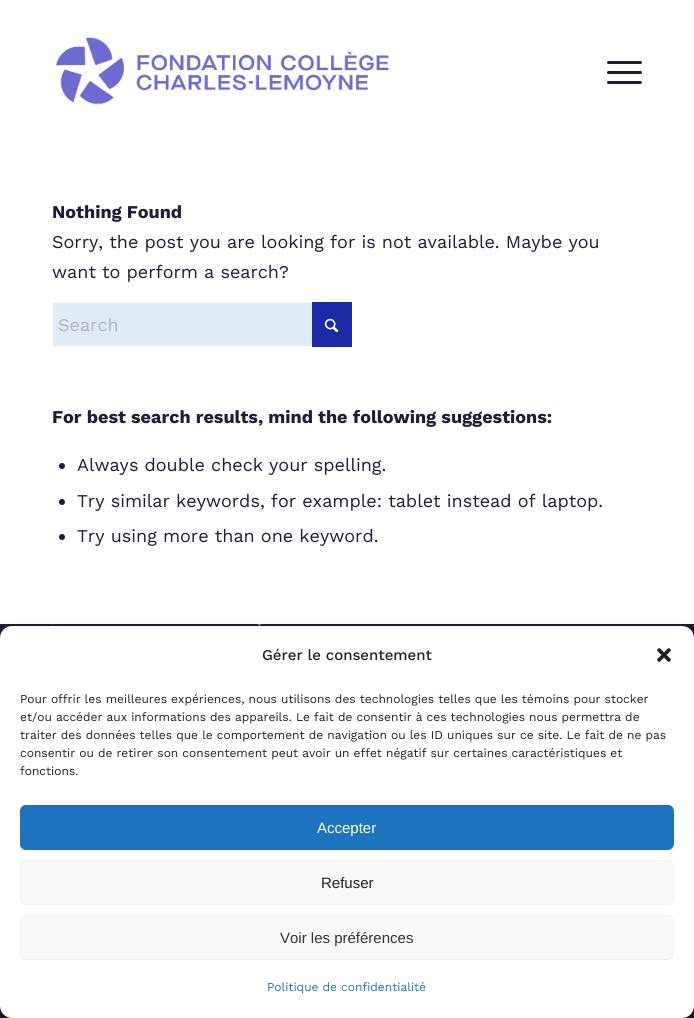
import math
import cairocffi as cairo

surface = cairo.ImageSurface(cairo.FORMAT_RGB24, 694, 1018)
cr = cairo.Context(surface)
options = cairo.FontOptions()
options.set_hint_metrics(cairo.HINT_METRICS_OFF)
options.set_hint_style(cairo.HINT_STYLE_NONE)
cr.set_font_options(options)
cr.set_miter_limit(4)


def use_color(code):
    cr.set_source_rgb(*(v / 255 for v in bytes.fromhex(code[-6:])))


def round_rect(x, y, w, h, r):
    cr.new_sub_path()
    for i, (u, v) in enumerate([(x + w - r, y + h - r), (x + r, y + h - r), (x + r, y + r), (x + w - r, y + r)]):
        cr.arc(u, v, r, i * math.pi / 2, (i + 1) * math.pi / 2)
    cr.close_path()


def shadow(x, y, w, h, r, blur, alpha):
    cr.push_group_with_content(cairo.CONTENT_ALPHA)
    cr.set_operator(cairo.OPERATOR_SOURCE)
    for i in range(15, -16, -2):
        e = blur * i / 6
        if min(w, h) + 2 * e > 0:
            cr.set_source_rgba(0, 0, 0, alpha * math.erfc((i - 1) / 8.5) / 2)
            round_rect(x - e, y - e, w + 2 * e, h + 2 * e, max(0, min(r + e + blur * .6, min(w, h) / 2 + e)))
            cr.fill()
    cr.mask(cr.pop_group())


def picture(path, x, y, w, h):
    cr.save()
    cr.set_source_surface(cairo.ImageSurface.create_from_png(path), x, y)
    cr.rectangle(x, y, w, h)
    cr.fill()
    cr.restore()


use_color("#ffffff")
cr.paint()
picture("img1.png", 56, 37, 333, 68)
use_color("#1c1d3b")
round_rect(607, 71, 35, 3, 1.5)
cr.fill()
round_rect(607, 61, 35, 3, 1.5)
cr.fill()
round_rect(607, 81, 35, 3, 1.5)
cr.fill()
cr.select_font_face("Work Sans", cairo.FONT_SLANT_NORMAL, cairo.FONT_WEIGHT_BOLD)
cr.set_font_size(18)
cr.move_to(52, 218)
cr.show_text("Nothing Found")
cr.select_font_face("Work Sans")
cr.move_to(52, 248)
cr.show_text("Sorry, the post you are looking for is not available. Maybe you")
cr.move_to(52, 278)
cr.show_text("want to perform a search?")
use_color("#e1ebf5")
cr.rectangle(53, 303, 259, 43)
cr.fill()
use_color("#acb1bf")
cr.move_to(58, 331)
cr.show_text("Search")
use_color("#1c2aa7")
cr.rectangle(312, 302, 40, 45)
cr.fill()
picture("img2.png", 324, 318, 15, 15)
cr.select_font_face("Work Sans", cairo.FONT_SLANT_NORMAL, cairo.FONT_WEIGHT_BOLD)
use_color("#1c1d3b")
cr.move_to(52, 423)
cr.show_text("For best search results, mind the following suggestions:")
cr.new_path()
cr.arc(62, 466, 3, 0, 2 * math.pi)
cr.fill()
cr.select_font_face("Work Sans")
cr.move_to(77, 471)
cr.show_text("Always double check your spelling.")
cr.new_path()
cr.arc(62, 502, 3, 0, 2 * math.pi)
cr.fill()
cr.move_to(77, 507)
cr.show_text("Try similar keywords, for example: tablet instead of laptop.")
cr.new_path()
cr.arc(62, 537, 3, 0, 2 * math.pi)
cr.fill()
cr.move_to(77, 542)
cr.show_text("Try using more than one keyword.")
picture("img3.png", 0, 624, 694, 394)
use_color("#000000")
shadow(0, 632, 694, 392, 12, 3, 0.23)
shadow(0, 636, 694, 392, 12, 10, 0.19)
use_color("#ffffff")
round_rect(0, 626, 694, 392, 12)
cr.fill()
cr.select_font_face("Work Sans Medium")
cr.set_font_size(15)
use_color("#222222")
cr.move_to(262, 660)
cr.show_text("Gérer le consentement")
picture("img4.png", 657, 648, 14, 14)
cr.select_font_face("Work Sans")
cr.set_font_size(12)
cr.move_to(20, 703)
cr.show_text("Pour offrir les meilleures expériences, nous utilisons des technologies telles que les témoins pour stocker")
cr.move_to(20, 721)
cr.show_text("et/ou accéder aux informations des appareils. Le fait de consentir à ces technologies nous permettra de")
cr.move_to(20, 739)
cr.show_text("traiter des données telles que le comportement de navigation ou les ID uniques sur ce site. Le fait de ne pas")
cr.move_to(20, 757)
cr.show_text("consentir ou de retirer son consentement peut avoir un effet négatif sur certaines caractéristiques et")
cr.move_to(20, 775)
cr.show_text("fonctions.")
use_color("#1e73be")
round_rect(20.5, 805.5, 653, 44, 5.5)
cr.fill_preserve()
cr.set_line_width(1)
cr.stroke()
cr.select_font_face("Liberation Sans")
cr.set_font_size(15)
use_color("#ffffff")
cr.move_to(317, 833)
cr.show_text("Accepter")
use_color("#f9f9f9")
round_rect(20.5, 860.5, 653, 44, 5.5)
cr.fill_preserve()
use_color("#f2f2f2")
cr.stroke()
use_color("#222222")
cr.move_to(321, 888)
cr.show_text("Refuser")
use_color("#f9f9f9")
round_rect(20.5, 915.5, 653, 44, 5.5)
cr.fill_preserve()
use_color("#f2f2f2")
cr.stroke()
use_color("#333333")
cr.move_to(280, 943)
cr.show_text("Voir les préférences")
cr.select_font_face("Work Sans")
cr.set_font_size(12)
use_color("#1e73be")
cr.move_to(267, 991)
cr.show_text("Politique de confidentialité")
surface.write_to_png("result.png")
